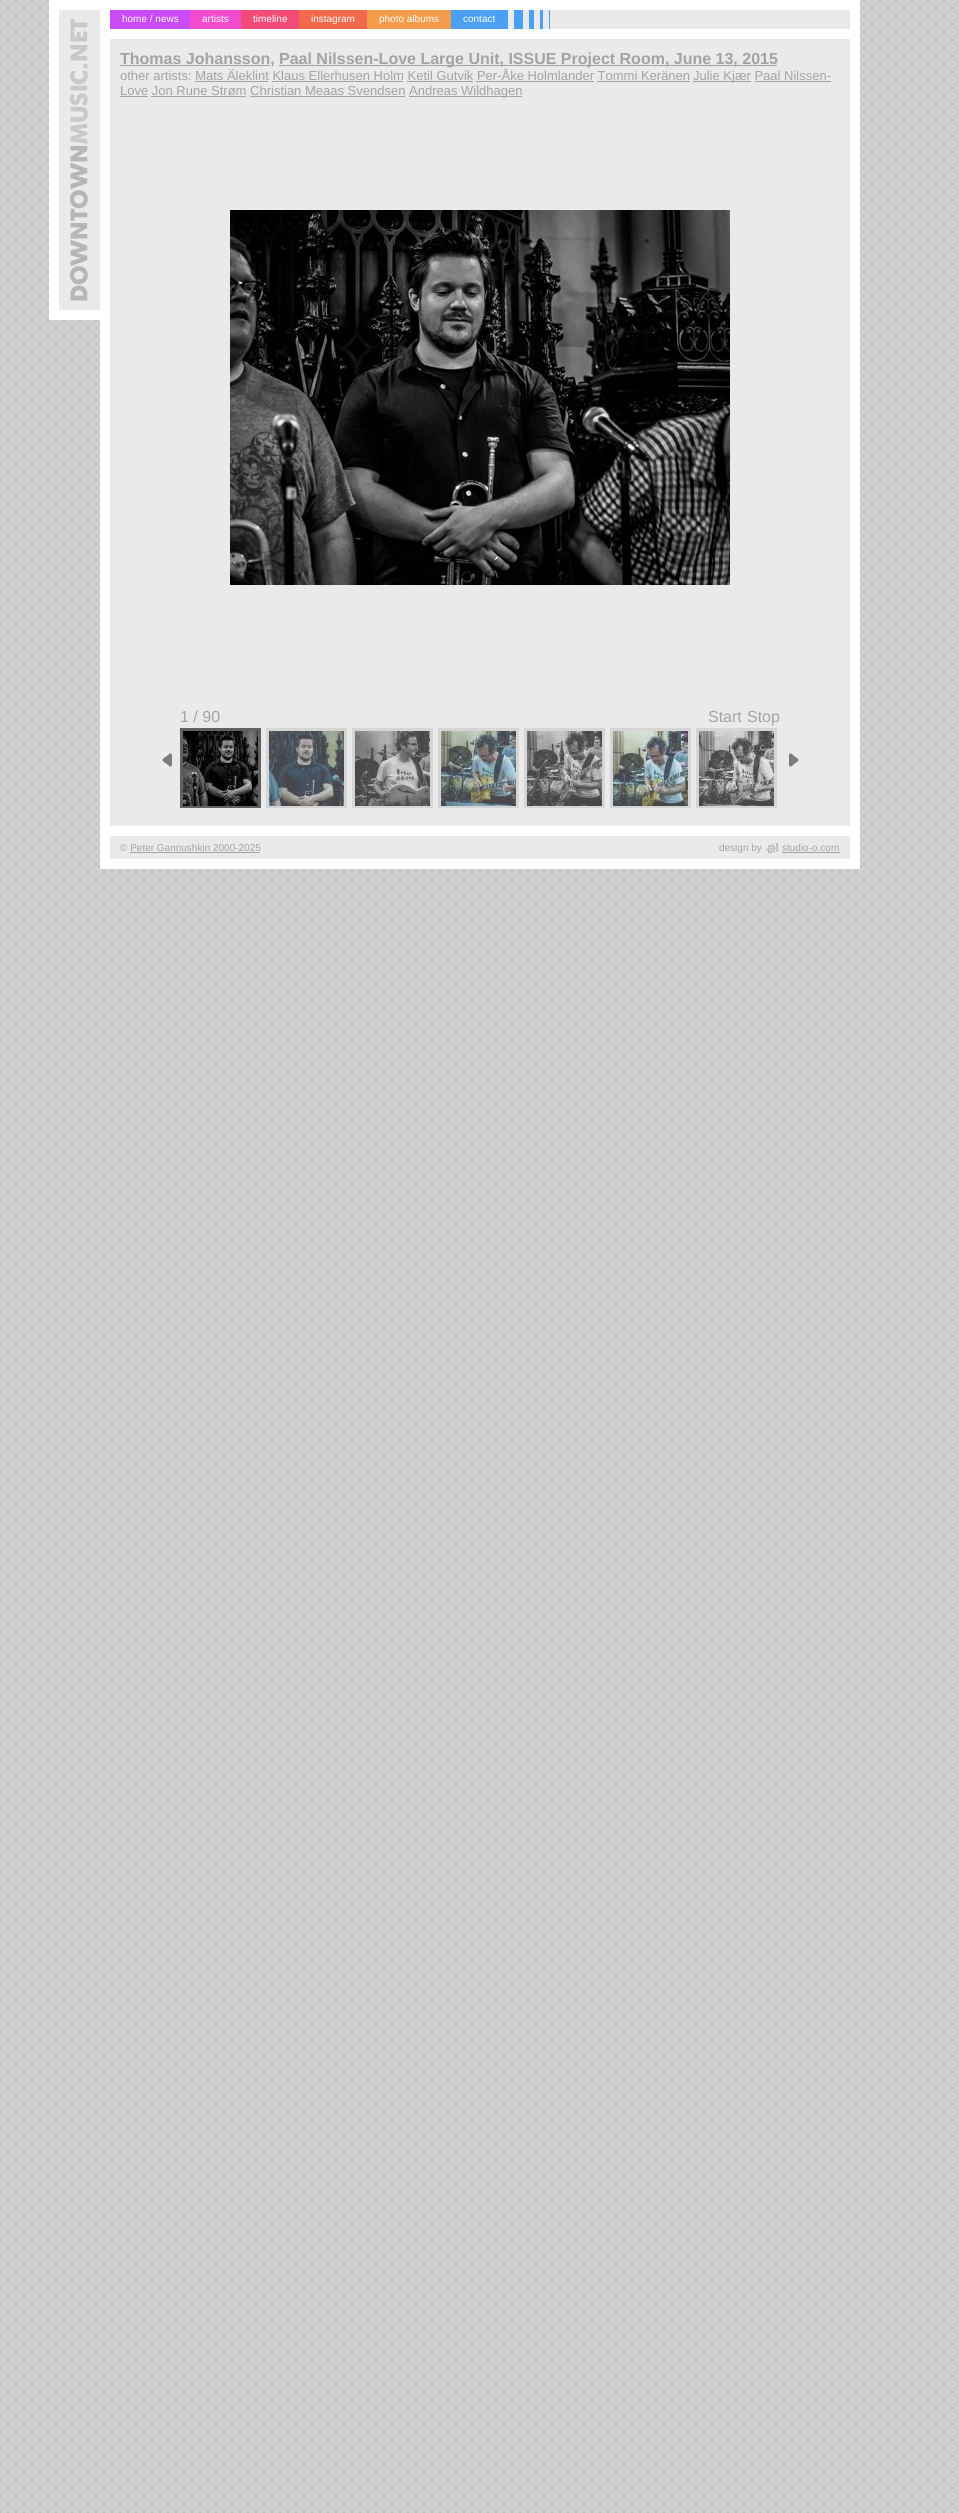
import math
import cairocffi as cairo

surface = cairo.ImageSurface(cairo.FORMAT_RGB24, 959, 2513)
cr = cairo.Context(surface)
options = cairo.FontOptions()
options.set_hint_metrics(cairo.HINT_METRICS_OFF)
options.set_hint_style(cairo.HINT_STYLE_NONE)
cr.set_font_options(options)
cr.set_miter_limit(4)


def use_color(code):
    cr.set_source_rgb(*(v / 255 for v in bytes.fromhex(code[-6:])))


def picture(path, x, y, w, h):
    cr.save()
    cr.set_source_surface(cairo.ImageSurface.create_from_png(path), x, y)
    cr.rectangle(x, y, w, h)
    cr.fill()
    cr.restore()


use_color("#ffffff")
cr.paint()
picture("img1.png", 0, 0, 959, 2513)
use_color("#eaeaea")
cr.rectangle(105, 5, 750, 859)
cr.fill_preserve()
use_color("#ffffff")
cr.set_line_width(10)
cr.stroke()
use_color("#eaeaea")
cr.rectangle(59, 10, 41, 300)
cr.fill()
picture("img2.png", 70, 18, 18, 283)
use_color("#ffffff")
cr.rectangle(59, 0, 41, 10)
cr.fill()
cr.rectangle(59, 310, 41, 10)
cr.fill()
cr.rectangle(49, 0, 10, 320)
cr.fill()
cr.rectangle(110, 29, 740, 10)
cr.fill()
use_color("#c94af7")
cr.rectangle(110, 10, 80, 19)
cr.fill()
cr.select_font_face("Liberation Sans")
cr.set_font_size(10)
use_color("#ffffff")
cr.move_to(122, 22)
cr.show_text("home / news")
use_color("#f24bcd")
cr.rectangle(190, 10, 51, 19)
cr.fill()
use_color("#ffffff")
cr.move_to(202, 22)
cr.show_text("artists")
use_color("#f24b77")
cr.rectangle(241, 10, 58, 19)
cr.fill()
use_color("#ffffff")
cr.move_to(253, 22)
cr.show_text("timeline")
use_color("#f26a4b")
cr.rectangle(299, 10, 68, 19)
cr.fill()
use_color("#ffffff")
cr.move_to(311, 22)
cr.show_text("instagram")
use_color("#f29c4b")
cr.rectangle(367, 10, 84, 19)
cr.fill()
use_color("#ffffff")
cr.move_to(379, 22)
cr.show_text("photo albums")
use_color("#4ba0f2")
cr.rectangle(451, 10, 57, 19)
cr.fill()
use_color("#ffffff")
cr.move_to(463, 22)
cr.show_text("contact")
picture("img3.png", 514, 10, 36, 19)
use_color("#a4a3a3")
cr.rectangle(120, 65, 150, 1)
cr.fill()
cr.select_font_face("Liberation Sans", cairo.FONT_SLANT_NORMAL, cairo.FONT_WEIGHT_BOLD)
cr.set_font_size(16)
cr.move_to(120, 64)
cr.show_text("Thomas Johansson,")
cr.rectangle(279, 65, 498, 1)
cr.fill()
cr.move_to(279, 64)
cr.show_text("Paal Nilssen-Love Large Unit, ISSUE Project Room, June 13, 2015")
cr.select_font_face("Liberation Sans")
cr.set_font_size(13)
cr.move_to(120, 80)
cr.show_text("other artists: Mats Äleklint Klaus Ellerhusen Holm Ketil Gutvik Per-Åke Holmlander Tommi Keränen")
cr.rectangle(693, 81, 58, 1)
cr.fill()
cr.move_to(693, 80)
cr.show_text("Julie Kjær Paal Nilssen-")
cr.rectangle(195, 81, 73, 1)
cr.fill()
cr.rectangle(272, 81, 131, 1)
cr.fill()
cr.rectangle(407, 81, 66, 1)
cr.fill()
cr.rectangle(476, 81, 118, 1)
cr.fill()
cr.rectangle(597, 81, 93, 1)
cr.fill()
cr.move_to(120, 95)
cr.show_text("Love Jon Rune Strøm Christian Meaas Svendsen")
cr.rectangle(755, 81, 76, 1)
cr.fill()
cr.rectangle(120, 96, 28, 1)
cr.fill()
cr.rectangle(409, 96, 113, 1)
cr.fill()
cr.move_to(409, 95)
cr.show_text("Andreas Wildhagen")
cr.rectangle(151, 96, 95, 1)
cr.fill()
cr.rectangle(250, 96, 155, 1)
cr.fill()
picture("img4.png", 230, 210, 500, 375)
cr.set_font_size(16)
cr.move_to(180, 722)
cr.show_text("1 / 90")
cr.move_to(708, 722)
cr.show_text("Start")
cr.move_to(747, 722)
cr.show_text("Stop")
picture("img5.png", 162, 753, 10, 14)
cr.save()
cr.rectangle(180, 728, 600, 80)
cr.clip()
cr.rectangle(181.5, 729.5, 78, 78)
use_color("#616161")
cr.set_line_width(3)
cr.stroke()
cr.restore()
picture("img6.png", 183, 731, 75, 75)
cr.save()
cr.rectangle(180, 728, 600, 80)
cr.clip()
cr.rectangle(267.5, 729.5, 78, 78)
use_color("#d5d5d5")
cr.set_line_width(3)
cr.stroke()
cr.restore()
picture("img7.png", 269, 731, 75, 75)
cr.save()
cr.rectangle(180, 728, 600, 80)
cr.clip()
cr.rectangle(353.5, 729.5, 78, 78)
use_color("#d5d5d5")
cr.set_line_width(3)
cr.stroke()
cr.restore()
picture("img8.png", 355, 731, 75, 75)
cr.save()
cr.rectangle(180, 728, 600, 80)
cr.clip()
cr.rectangle(439.5, 729.5, 78, 78)
use_color("#d5d5d5")
cr.set_line_width(3)
cr.stroke()
cr.restore()
picture("img9.png", 441, 731, 75, 75)
cr.save()
cr.rectangle(180, 728, 600, 80)
cr.clip()
cr.rectangle(525.5, 729.5, 78, 78)
use_color("#d5d5d5")
cr.set_line_width(3)
cr.stroke()
cr.restore()
picture("img10.png", 527, 731, 75, 75)
cr.save()
cr.rectangle(180, 728, 600, 80)
cr.clip()
cr.rectangle(611.5, 729.5, 78, 78)
use_color("#d5d5d5")
cr.set_line_width(3)
cr.stroke()
cr.restore()
picture("img11.png", 613, 731, 75, 75)
cr.save()
cr.rectangle(180, 728, 600, 80)
cr.clip()
cr.rectangle(697.5, 729.5, 78, 78)
use_color("#d5d5d5")
cr.set_line_width(3)
cr.stroke()
cr.restore()
picture("img12.png", 699, 731, 75, 75)
picture("img13.png", 789, 753, 10, 14)
use_color("#ffffff")
cr.rectangle(110, 826, 740, 10)
cr.fill()
cr.set_font_size(10)
use_color("#a4a3a3")
cr.move_to(120, 851)
cr.show_text("© Peter Gannushkin 2000-2025")
cr.rectangle(130, 852, 130, 1)
cr.fill()
cr.move_to(719, 851)
cr.show_text("design by")
picture("img14.png", 766, 843, 12, 11)
cr.move_to(782, 851)
cr.show_text("studio-o.com")
cr.rectangle(782, 852, 58, 1)
cr.fill()
surface.write_to_png("result.png")
